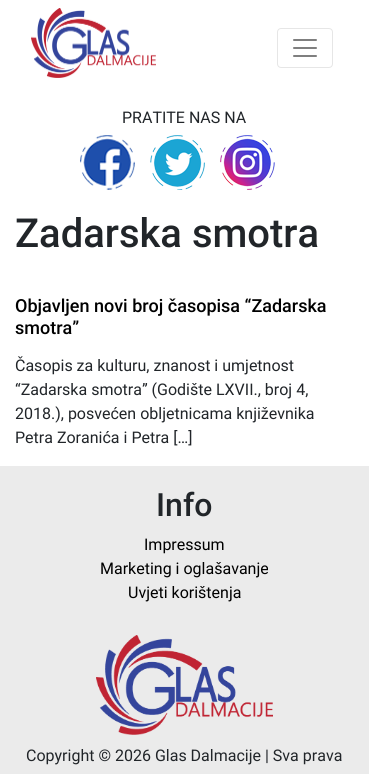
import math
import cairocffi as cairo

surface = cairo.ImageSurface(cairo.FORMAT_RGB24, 369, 774)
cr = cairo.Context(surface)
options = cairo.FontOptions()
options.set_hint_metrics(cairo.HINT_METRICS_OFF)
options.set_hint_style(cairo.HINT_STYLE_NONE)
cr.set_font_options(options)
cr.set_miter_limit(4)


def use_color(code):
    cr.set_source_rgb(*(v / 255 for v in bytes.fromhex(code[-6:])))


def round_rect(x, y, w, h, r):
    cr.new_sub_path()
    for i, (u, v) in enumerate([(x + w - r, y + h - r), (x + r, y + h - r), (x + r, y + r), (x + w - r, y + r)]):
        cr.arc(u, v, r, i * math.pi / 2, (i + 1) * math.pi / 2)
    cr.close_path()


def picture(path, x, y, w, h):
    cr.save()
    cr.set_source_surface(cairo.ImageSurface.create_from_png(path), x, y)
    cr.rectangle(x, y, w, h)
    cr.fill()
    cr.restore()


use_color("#ffffff")
cr.paint()
picture("img1.png", 31, 8, 125, 70)
round_rect(277.5, 28.5, 55, 39, 3.5)
use_color("#e6e6e6")
cr.set_line_width(1)
cr.stroke()
picture("img2.png", 293, 39, 24, 18)
cr.select_font_face("Roboto")
cr.set_font_size(16)
use_color("#212529")
cr.move_to(122, 123)
cr.show_text("PRATITE NAS NA")
picture("img3.png", 80, 135, 55, 55)
picture("img4.png", 150, 135, 55, 55)
picture("img5.png", 220, 135, 55, 55)
cr.select_font_face("Roboto Medium")
cr.set_font_size(40)
cr.move_to(15, 247)
cr.show_text("Zadarska smotra")
cr.set_font_size(18)
use_color("#000000")
cr.move_to(15, 312)
cr.show_text("Objavljen novi broj časopisa “Zadarska")
cr.move_to(15, 334)
cr.show_text("smotra”")
cr.select_font_face("Roboto")
cr.set_font_size(16)
use_color("#212529")
cr.move_to(15, 371)
cr.show_text("Časopis za kulturu, znanost i umjetnost")
cr.move_to(15, 395)
cr.show_text("“Zadarska smotra” (Godište LXVII., broj 4,")
cr.move_to(15, 419)
cr.show_text("2018.), posvećen obljetnicama književnika")
cr.move_to(15, 443)
cr.show_text("Petra Zoranića i Petra […]")
use_color("#ebebeb")
cr.rectangle(0, 466, 369, 308)
cr.fill()
cr.select_font_face("Roboto Medium")
cr.set_font_size(32)
use_color("#212529")
cr.move_to(156, 516)
cr.show_text("Info")
cr.select_font_face("Roboto")
cr.set_font_size(16)
use_color("#000000")
cr.move_to(144, 550)
cr.show_text("Impressum")
cr.move_to(100, 574)
cr.show_text("Marketing i oglašavanje")
cr.move_to(128, 598)
cr.show_text("Uvjeti korištenja")
picture("img6.png", 96, 635, 177, 100)
use_color("#212529")
cr.move_to(26, 761)
cr.show_text("Copyright © 2026 Glas Dalmacije | Sva prava")
surface.write_to_png("result.png")
